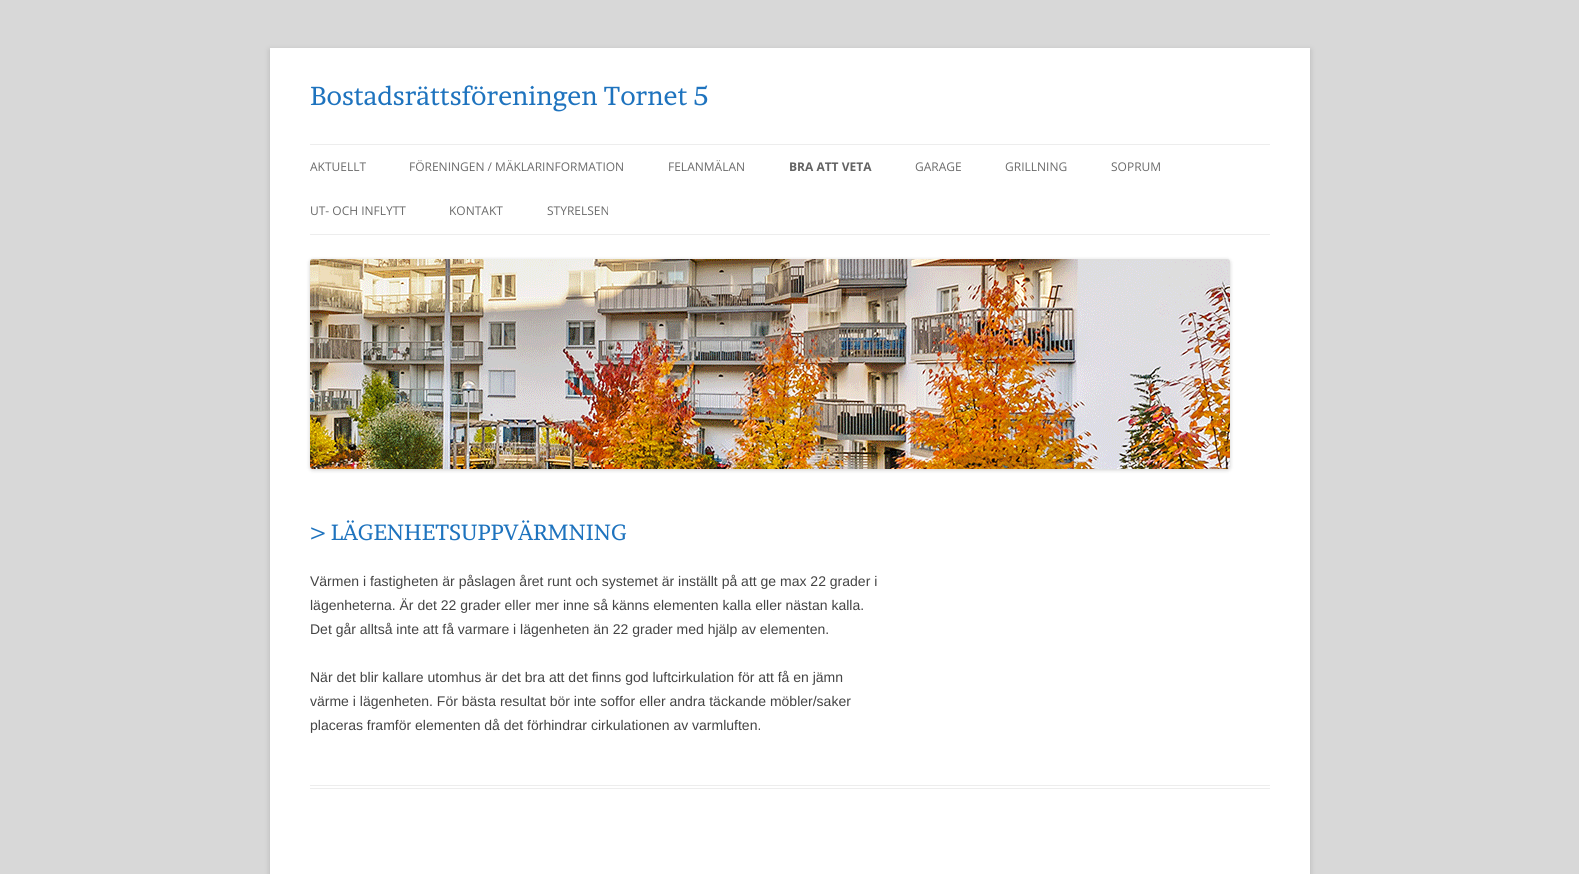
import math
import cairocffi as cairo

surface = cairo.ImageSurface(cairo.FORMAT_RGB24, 1579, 874)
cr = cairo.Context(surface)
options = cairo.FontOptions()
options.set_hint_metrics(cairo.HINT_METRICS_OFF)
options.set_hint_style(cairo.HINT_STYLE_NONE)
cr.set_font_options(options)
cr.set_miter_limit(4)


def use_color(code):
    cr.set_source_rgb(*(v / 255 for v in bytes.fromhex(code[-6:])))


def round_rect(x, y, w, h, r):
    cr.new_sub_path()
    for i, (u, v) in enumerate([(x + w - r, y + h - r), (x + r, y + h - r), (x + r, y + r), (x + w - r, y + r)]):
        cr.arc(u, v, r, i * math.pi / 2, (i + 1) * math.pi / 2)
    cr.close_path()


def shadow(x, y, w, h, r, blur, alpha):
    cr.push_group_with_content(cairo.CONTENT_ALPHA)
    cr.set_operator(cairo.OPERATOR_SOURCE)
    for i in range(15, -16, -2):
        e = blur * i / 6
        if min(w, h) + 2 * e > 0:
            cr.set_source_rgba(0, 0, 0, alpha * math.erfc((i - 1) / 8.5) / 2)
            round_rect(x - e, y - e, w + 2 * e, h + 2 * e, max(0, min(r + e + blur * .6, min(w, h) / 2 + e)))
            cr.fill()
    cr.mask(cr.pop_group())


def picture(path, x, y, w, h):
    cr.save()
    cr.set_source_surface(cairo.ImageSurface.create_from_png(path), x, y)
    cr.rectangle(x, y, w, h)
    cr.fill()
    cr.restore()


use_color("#d8d8d8")
cr.paint()
use_color("#646464")
shadow(270, 50, 1040, 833, 0, 3, 0.3)
use_color("#ffffff")
cr.rectangle(270, 48, 1040, 826)
cr.fill()
cr.select_font_face("Brawler")
cr.set_font_size(26)
use_color("#1e73be")
cr.move_to(310, 105)
cr.show_text("Bostadsrättsföreningen Tornet 5")
use_color("#ededed")
cr.rectangle(310, 144, 960, 1)
cr.fill()
cr.rectangle(310, 234, 960, 1)
cr.fill()
cr.select_font_face("Open Sans")
cr.set_font_size(12)
use_color("#6a6a6a")
cr.move_to(310, 171)
cr.show_text("AKTUELLT")
cr.move_to(409, 171)
cr.show_text("FÖRENINGEN / MÄKLARINFORMATION")
cr.move_to(668, 171)
cr.show_text("FELANMÄLAN")
cr.select_font_face("Open Sans", cairo.FONT_SLANT_NORMAL, cairo.FONT_WEIGHT_BOLD)
use_color("#636363")
cr.move_to(789, 171)
cr.show_text("BRA ATT VETA")
cr.select_font_face("Open Sans")
use_color("#6a6a6a")
cr.move_to(915, 171)
cr.show_text("GARAGE")
cr.move_to(1005, 171)
cr.show_text("GRILLNING")
cr.move_to(1111, 171)
cr.show_text("SOPRUM")
cr.move_to(310, 215)
cr.show_text("UT- OCH INFLYTT")
cr.move_to(449, 215)
cr.show_text("KONTAKT")
cr.move_to(547, 215)
cr.show_text("STYRELSEN")
use_color("#000000")
shadow(310, 260, 920, 210, 3, 2, 0.2)
picture("img1.png", 310, 259, 920, 210)
use_color("#ededed")
cr.rectangle(310, 785, 960, 1)
cr.fill()
cr.rectangle(310, 788, 960, 1)
cr.fill()
cr.select_font_face("Brawler")
cr.set_font_size(22)
use_color("#1e73be")
cr.move_to(310, 540)
cr.show_text("> LÄGENHETSUPPVÄRMNING")
cr.select_font_face("Liberation Sans")
cr.set_font_size(14)
use_color("#444444")
cr.move_to(310, 586)
cr.show_text("Värmen i fastigheten är påslagen året runt och systemet är inställt på att ge max 22 grader i")
cr.move_to(310, 610)
cr.show_text("lägenheterna. Är det 22 grader eller mer inne så känns elementen kalla eller nästan kalla.")
cr.move_to(310, 634)
cr.show_text("Det går alltså inte att få varmare i lägenheten än 22 grader med hjälp av elementen.")
cr.move_to(310, 682)
cr.show_text("När det blir kallare utomhus är det bra att det finns god luftcirkulation för att få en jämn")
cr.move_to(310, 706)
cr.show_text("värme i lägenheten. För bästa resultat bör inte soffor eller andra täckande möbler/saker")
cr.move_to(310, 730)
cr.show_text("placeras framför elementen då det förhindrar cirkulationen av varmluften.")
surface.write_to_png("result.png")
